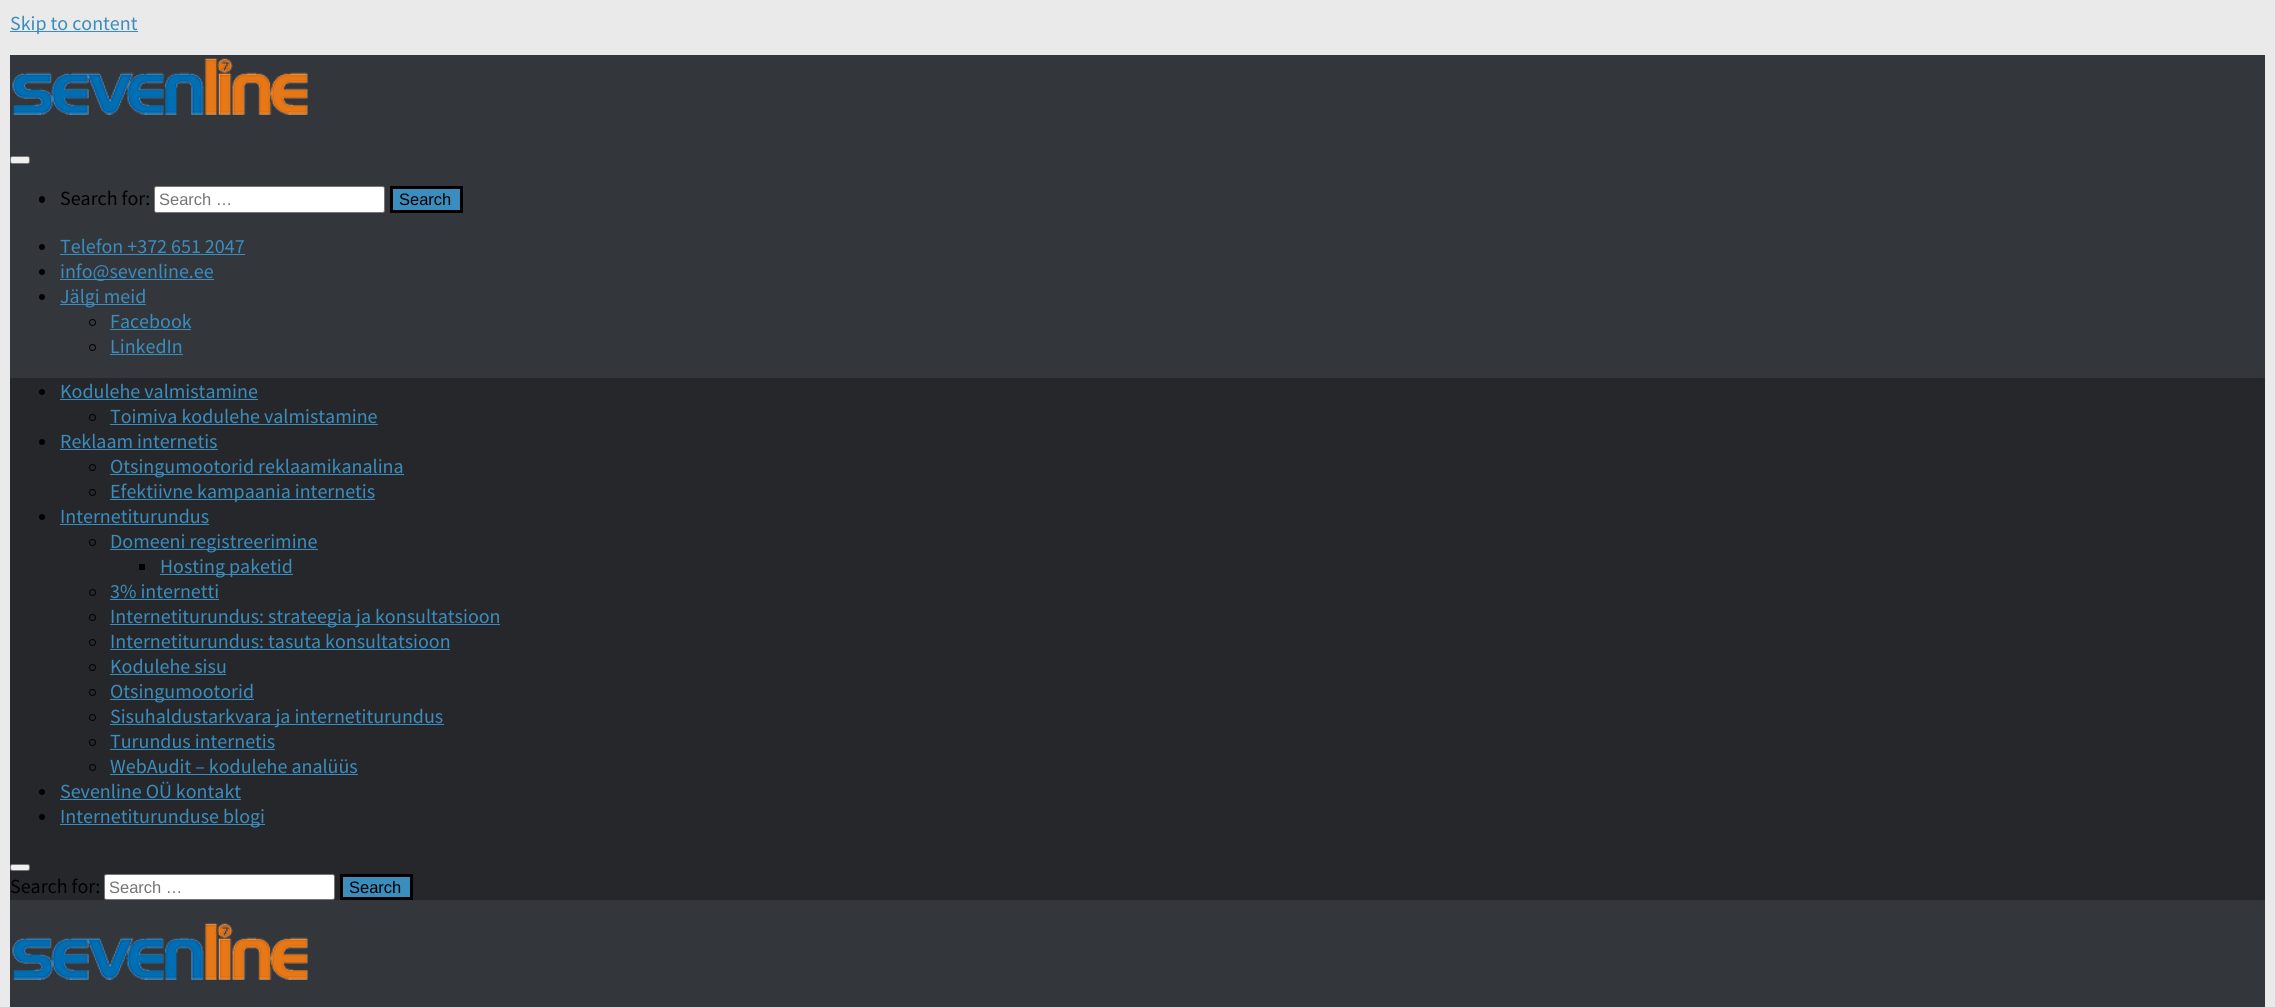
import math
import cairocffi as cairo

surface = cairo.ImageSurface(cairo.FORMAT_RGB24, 2275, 1007)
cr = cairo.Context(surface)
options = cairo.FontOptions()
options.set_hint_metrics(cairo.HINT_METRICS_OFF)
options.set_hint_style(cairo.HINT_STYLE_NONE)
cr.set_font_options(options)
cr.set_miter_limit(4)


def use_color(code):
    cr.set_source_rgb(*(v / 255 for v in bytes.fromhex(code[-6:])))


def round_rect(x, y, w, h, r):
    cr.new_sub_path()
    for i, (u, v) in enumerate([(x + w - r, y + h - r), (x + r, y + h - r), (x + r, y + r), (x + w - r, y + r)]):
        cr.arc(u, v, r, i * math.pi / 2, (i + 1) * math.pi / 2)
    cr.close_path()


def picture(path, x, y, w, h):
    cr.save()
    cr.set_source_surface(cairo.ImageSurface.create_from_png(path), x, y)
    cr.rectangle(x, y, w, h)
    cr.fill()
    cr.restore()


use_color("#eaeaea")
cr.paint()
use_color("#3b8dbd")
cr.rectangle(10, 31, 128, 1)
cr.fill()
cr.select_font_face("Source Sans Pro")
cr.set_font_size(20)
cr.move_to(10, 30)
cr.show_text("Skip to content")
use_color("#33363b")
cr.rectangle(10, 55, 2255, 952)
cr.fill()
picture("img1.png", 12, 58, 296, 57)
use_color("#efefef")
round_rect(10.5, 156.5, 19, 7, 2)
cr.fill_preserve()
use_color("#767676")
cr.set_line_width(1)
cr.stroke()
use_color("#000000")
round_rect(39, 196, 6, 7, 3)
cr.fill()
cr.move_to(60, 205)
cr.show_text("Search for:")
use_color("#ffffff")
round_rect(154.5, 186.5, 230, 26, 2)
cr.fill_preserve()
use_color("#767676")
cr.stroke()
cr.select_font_face("Liberation Sans")
cr.set_font_size(16.5)
use_color("#757575")
cr.move_to(159, 205)
cr.show_text("Search …")
use_color("#3b8dbd")
cr.rectangle(391.5, 187.5, 70, 24)
cr.fill_preserve()
use_color("#000000")
cr.set_line_width(3)
cr.stroke()
cr.move_to(399, 205)
cr.show_text("Search")
cr.new_path()
cr.arc(42, 247, 3, 0, 2 * math.pi)
cr.fill()
cr.select_font_face("Source Sans Pro")
cr.set_font_size(20)
use_color("#3b8dbd")
cr.move_to(60, 253)
cr.show_text("Telefon +372 651 2047")
cr.rectangle(60, 254, 185, 1)
cr.fill()
use_color("#000000")
cr.arc(42, 272, 3, 0, 2 * math.pi)
cr.fill()
use_color("#3b8dbd")
cr.rectangle(60, 279, 154, 1)
cr.fill()
cr.move_to(60, 278)
cr.show_text("info@sevenline.ee")
use_color("#000000")
cr.new_path()
cr.arc(42, 297, 3, 0, 2 * math.pi)
cr.fill()
use_color("#3b8dbd")
cr.rectangle(60, 304, 86, 1)
cr.fill()
cr.move_to(60, 303)
cr.show_text("Jälgi meid")
cr.new_path()
cr.arc(92.5, 322.5, 3, 0, 2 * math.pi)
use_color("#000000")
cr.set_line_width(1)
cr.stroke()
use_color("#3b8dbd")
cr.move_to(110, 328)
cr.show_text("Facebook")
cr.rectangle(110, 329, 81, 1)
cr.fill()
cr.arc(92.5, 347.5, 3, 0, 2 * math.pi)
use_color("#000000")
cr.stroke()
use_color("#3b8dbd")
cr.move_to(110, 353)
cr.show_text("LinkedIn")
cr.rectangle(110, 354, 73, 1)
cr.fill()
use_color("#26272b")
cr.rectangle(10, 378, 2255, 522)
cr.fill()
use_color("#000000")
cr.arc(42, 392, 3, 0, 2 * math.pi)
cr.fill()
use_color("#3b8dbd")
cr.move_to(60, 398)
cr.show_text("Kodulehe valmistamine")
cr.rectangle(60, 399, 198, 1)
cr.fill()
cr.arc(92.5, 417.5, 3, 0, 2 * math.pi)
use_color("#000000")
cr.stroke()
use_color("#3b8dbd")
cr.move_to(110, 423)
cr.show_text("Toimiva kodulehe valmistamine")
cr.rectangle(110, 424, 268, 1)
cr.fill()
use_color("#000000")
cr.arc(42, 442, 3, 0, 2 * math.pi)
cr.fill()
use_color("#3b8dbd")
cr.move_to(60, 448)
cr.show_text("Reklaam internetis")
cr.rectangle(60, 449, 158, 1)
cr.fill()
cr.arc(92.5, 467.5, 3, 0, 2 * math.pi)
use_color("#000000")
cr.stroke()
use_color("#3b8dbd")
cr.rectangle(110, 474, 294, 1)
cr.fill()
cr.move_to(110, 473)
cr.show_text("Otsingumootorid reklaamikanalina")
cr.new_path()
cr.arc(92.5, 492.5, 3, 0, 2 * math.pi)
use_color("#000000")
cr.stroke()
use_color("#3b8dbd")
cr.rectangle(110, 499, 265, 1)
cr.fill()
cr.move_to(110, 498)
cr.show_text("Efektiivne kampaania internetis")
use_color("#000000")
cr.new_path()
cr.arc(42, 517, 3, 0, 2 * math.pi)
cr.fill()
use_color("#3b8dbd")
cr.move_to(60, 523)
cr.show_text("Internetiturundus")
cr.rectangle(60, 524, 149, 1)
cr.fill()
cr.arc(92.5, 542.5, 3, 0, 2 * math.pi)
use_color("#000000")
cr.stroke()
use_color("#3b8dbd")
cr.rectangle(110, 549, 208, 1)
cr.fill()
cr.move_to(110, 548)
cr.show_text("Domeeni registreerimine")
use_color("#000000")
cr.rectangle(139, 564, 6, 6)
cr.fill()
use_color("#3b8dbd")
cr.rectangle(160, 574, 133, 1)
cr.fill()
cr.move_to(160, 573)
cr.show_text("Hosting paketid")
cr.new_path()
cr.arc(92.5, 592.5, 3, 0, 2 * math.pi)
use_color("#000000")
cr.stroke()
use_color("#3b8dbd")
cr.move_to(110, 598)
cr.show_text("3% internetti")
cr.rectangle(110, 599, 109, 1)
cr.fill()
cr.arc(92.5, 617.5, 3, 0, 2 * math.pi)
use_color("#000000")
cr.stroke()
use_color("#3b8dbd")
cr.rectangle(110, 624, 390, 1)
cr.fill()
cr.move_to(110, 623)
cr.show_text("Internetiturundus: strateegia ja konsultatsioon")
cr.new_path()
cr.arc(92.5, 642.5, 3, 0, 2 * math.pi)
use_color("#000000")
cr.stroke()
use_color("#3b8dbd")
cr.move_to(110, 648)
cr.show_text("Internetiturundus: tasuta konsultatsioon")
cr.rectangle(110, 649, 340, 1)
cr.fill()
cr.arc(92.5, 667.5, 3, 0, 2 * math.pi)
use_color("#000000")
cr.stroke()
use_color("#3b8dbd")
cr.move_to(110, 673)
cr.show_text("Kodulehe sisu")
cr.rectangle(110, 674, 116, 1)
cr.fill()
cr.arc(92.5, 692.5, 3, 0, 2 * math.pi)
use_color("#000000")
cr.stroke()
use_color("#3b8dbd")
cr.rectangle(110, 699, 144, 1)
cr.fill()
cr.move_to(110, 698)
cr.show_text("Otsingumootorid")
cr.new_path()
cr.arc(92.5, 717.5, 3, 0, 2 * math.pi)
use_color("#000000")
cr.stroke()
use_color("#3b8dbd")
cr.rectangle(110, 724, 334, 1)
cr.fill()
cr.move_to(110, 723)
cr.show_text("Sisuhaldustarkvara ja internetiturundus")
cr.new_path()
cr.arc(92.5, 742.5, 3, 0, 2 * math.pi)
use_color("#000000")
cr.stroke()
use_color("#3b8dbd")
cr.move_to(110, 748)
cr.show_text("Turundus internetis")
cr.rectangle(110, 749, 165, 1)
cr.fill()
cr.arc(92.5, 767.5, 3, 0, 2 * math.pi)
use_color("#000000")
cr.stroke()
use_color("#3b8dbd")
cr.move_to(110, 773)
cr.show_text("WebAudit – kodulehe analüüs")
cr.rectangle(110, 774, 248, 1)
cr.fill()
use_color("#000000")
cr.arc(42, 792, 3, 0, 2 * math.pi)
cr.fill()
use_color("#3b8dbd")
cr.move_to(60, 798)
cr.show_text("Sevenline OÜ kontakt")
cr.rectangle(60, 799, 181, 1)
cr.fill()
use_color("#000000")
cr.arc(42, 817, 3, 0, 2 * math.pi)
cr.fill()
use_color("#3b8dbd")
cr.rectangle(60, 824, 205, 1)
cr.fill()
cr.move_to(60, 823)
cr.show_text("Internetiturunduse blogi")
use_color("#efefef")
round_rect(10.5, 864.5, 19, 6, 2)
cr.fill_preserve()
use_color("#767676")
cr.stroke()
use_color("#000000")
cr.move_to(10, 893)
cr.show_text("Search for:")
use_color("#ffffff")
round_rect(104.5, 874.5, 230, 25, 2)
cr.fill_preserve()
use_color("#767676")
cr.stroke()
cr.select_font_face("Liberation Sans")
cr.set_font_size(16.5)
use_color("#757575")
cr.move_to(109, 893)
cr.show_text("Search …")
use_color("#3b8dbd")
cr.rectangle(341.5, 875.5, 70, 23)
cr.fill_preserve()
use_color("#000000")
cr.set_line_width(3)
cr.stroke()
cr.move_to(349, 893)
cr.show_text("Search")
picture("img1.png", 12, 923, 296, 57)
surface.write_to_png("result.png")
